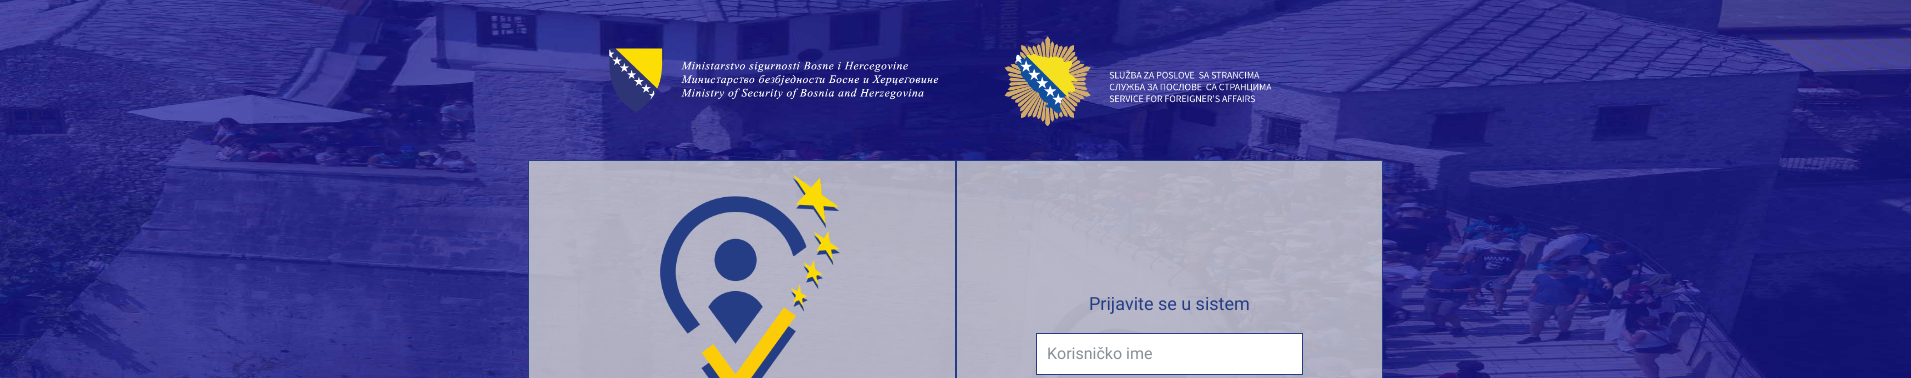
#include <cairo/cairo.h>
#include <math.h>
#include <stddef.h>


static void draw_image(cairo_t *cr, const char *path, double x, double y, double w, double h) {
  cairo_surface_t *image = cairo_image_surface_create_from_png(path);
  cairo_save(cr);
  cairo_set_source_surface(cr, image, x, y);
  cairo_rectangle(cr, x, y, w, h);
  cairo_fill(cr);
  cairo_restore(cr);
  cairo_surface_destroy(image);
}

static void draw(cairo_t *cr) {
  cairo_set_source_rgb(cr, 1, 1, 1);
  cairo_paint(cr);
  draw_image(cr, "images/1.png", 0, 0, 1911, 378);
  draw_image(cr, "images/2.png", 609, 48, 330, 64);
  draw_image(cr, "images/3.png", 1004, 36, 267, 90);
  cairo_set_source_rgba(cr, 210 / 255.0, 210 / 255.0, 210 / 255.0, 0.8);
  cairo_rectangle(cr, 528.5, 160.5, 427, 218);
  cairo_fill_preserve(cr);
  cairo_set_source_rgb(cr, 36 / 255.0, 61 / 255.0, 132 / 255.0);
  cairo_set_line_width(cr, 1);
  cairo_stroke(cr);
  draw_image(cr, "images/4.png", 660, 174, 180, 204);
  cairo_set_source_rgba(cr, 210 / 255.0, 210 / 255.0, 210 / 255.0, 0.8);
  cairo_rectangle(cr, 956.5, 160.5, 426, 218);
  cairo_fill_preserve(cr);
  cairo_set_source_rgb(cr, 36 / 255.0, 61 / 255.0, 132 / 255.0);
  cairo_stroke(cr);
  cairo_set_source_rgb(cr, 1, 1, 1);
  cairo_rectangle(cr, 1036.5, 333.5, 266, 41);
  cairo_fill_preserve(cr);
  cairo_set_source_rgb(cr, 36 / 255.0, 61 / 255.0, 132 / 255.0);
  cairo_stroke(cr);
  cairo_select_font_face(cr, "Roboto", CAIRO_FONT_SLANT_NORMAL, CAIRO_FONT_WEIGHT_NORMAL);
  cairo_set_font_size(cr, 18);
  cairo_move_to(cr, 1089, 310);
  cairo_show_text(cr, "Prijavite se u sistem");
  cairo_set_font_size(cr, 16);
  cairo_set_source_rgb(cr, 134 / 255.0, 142 / 255.0, 150 / 255.0);
  cairo_move_to(cr, 1047, 359);
  cairo_show_text(cr, "Korisničko ime");
}

int main(void) {
  cairo_surface_t *surface = cairo_image_surface_create(CAIRO_FORMAT_RGB24, 1911, 378);
  cairo_t *cr = cairo_create(surface);
  cairo_font_options_t *options = cairo_font_options_create();
  cairo_font_options_set_hint_metrics(options, CAIRO_HINT_METRICS_OFF);
  cairo_font_options_set_hint_style(options, CAIRO_HINT_STYLE_NONE);
  cairo_set_font_options(cr, options);
  cairo_set_miter_limit(cr, 4);
  draw(cr);
  cairo_surface_write_to_png(surface, "out.png");
  cairo_font_options_destroy(options);
  cairo_destroy(cr);
  cairo_surface_destroy(surface);
  return 0;
}
